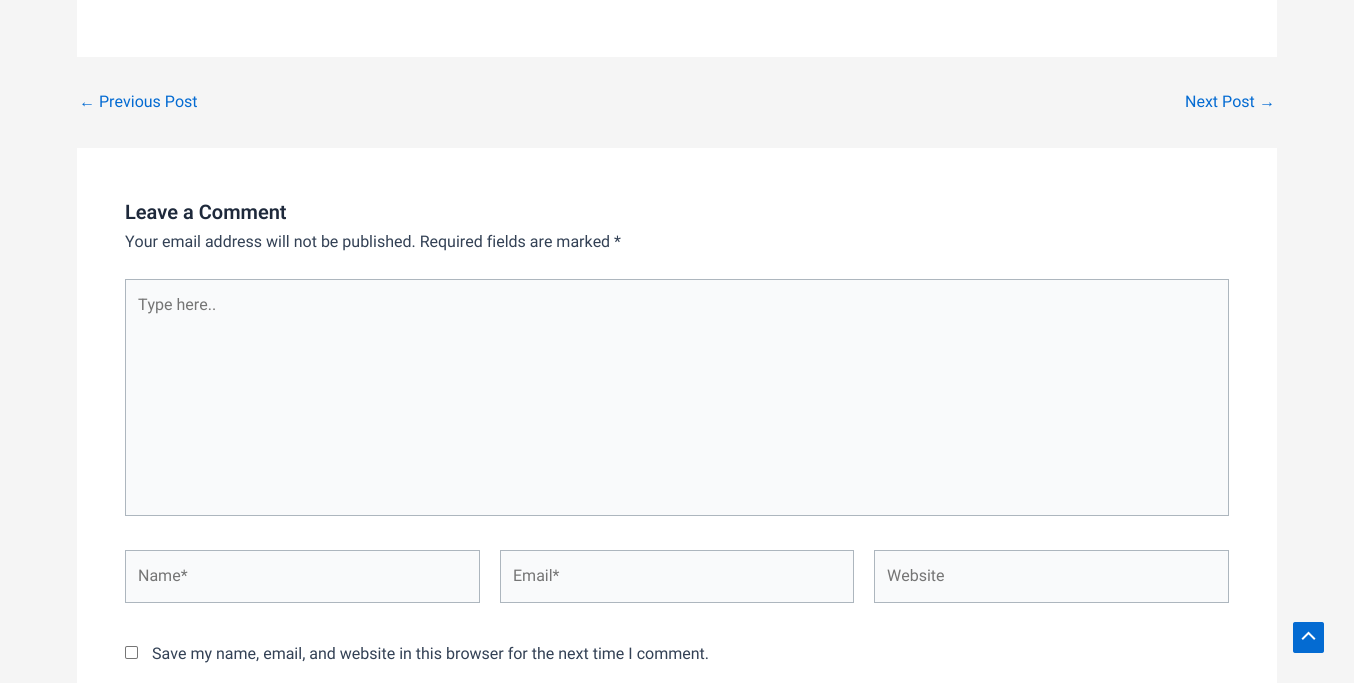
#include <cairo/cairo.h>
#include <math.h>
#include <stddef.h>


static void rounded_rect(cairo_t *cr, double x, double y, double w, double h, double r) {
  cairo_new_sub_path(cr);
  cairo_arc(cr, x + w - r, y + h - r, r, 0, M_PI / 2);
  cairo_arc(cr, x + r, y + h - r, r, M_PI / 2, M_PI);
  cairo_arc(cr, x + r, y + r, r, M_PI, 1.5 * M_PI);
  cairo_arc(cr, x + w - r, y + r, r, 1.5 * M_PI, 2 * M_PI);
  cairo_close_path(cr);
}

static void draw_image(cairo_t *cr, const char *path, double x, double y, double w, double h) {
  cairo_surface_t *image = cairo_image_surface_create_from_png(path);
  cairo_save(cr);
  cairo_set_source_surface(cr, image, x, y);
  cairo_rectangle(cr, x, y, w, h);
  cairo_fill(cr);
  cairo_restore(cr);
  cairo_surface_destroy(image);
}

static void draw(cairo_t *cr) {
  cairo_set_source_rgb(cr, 245 / 255.0, 245 / 255.0, 245 / 255.0);
  cairo_paint(cr);
  cairo_set_source_rgb(cr, 1, 1, 1);
  cairo_rectangle(cr, 77, 0, 1200, 57);
  cairo_fill(cr);
  cairo_rectangle(cr, 77, 148, 1200, 535);
  cairo_fill(cr);
  cairo_set_source_rgb(cr, 249 / 255.0, 250 / 255.0, 251 / 255.0);
  cairo_rectangle(cr, 125.5, 279.5, 1103, 236);
  cairo_fill_preserve(cr);
  cairo_set_source_rgb(cr, 173 / 255.0, 182 / 255.0, 190 / 255.0);
  cairo_set_line_width(cr, 1);
  cairo_stroke(cr);
  cairo_set_source_rgb(cr, 249 / 255.0, 250 / 255.0, 251 / 255.0);
  cairo_rectangle(cr, 125.5, 550.5, 354, 52);
  cairo_fill_preserve(cr);
  cairo_set_source_rgb(cr, 173 / 255.0, 182 / 255.0, 190 / 255.0);
  cairo_stroke(cr);
  cairo_set_source_rgb(cr, 249 / 255.0, 250 / 255.0, 251 / 255.0);
  cairo_rectangle(cr, 500.5, 550.5, 353, 52);
  cairo_fill_preserve(cr);
  cairo_set_source_rgb(cr, 173 / 255.0, 182 / 255.0, 190 / 255.0);
  cairo_stroke(cr);
  cairo_set_source_rgb(cr, 249 / 255.0, 250 / 255.0, 251 / 255.0);
  cairo_rectangle(cr, 874.5, 550.5, 354, 52);
  cairo_fill_preserve(cr);
  cairo_set_source_rgb(cr, 173 / 255.0, 182 / 255.0, 190 / 255.0);
  cairo_stroke(cr);
  rounded_rect(cr, 125.5, 646.5, 12, 12, 1.5);
  cairo_set_source_rgb(cr, 118 / 255.0, 118 / 255.0, 118 / 255.0);
  cairo_stroke(cr);
  cairo_set_source_rgb(cr, 4 / 255.0, 107 / 255.0, 210 / 255.0);
  rounded_rect(cr, 1293, 622, 31, 31, 2);
  cairo_fill(cr);
  draw_image(cr, "images/1.png", 1301, 631, 15, 9);
  cairo_select_font_face(cr, "Liberation Sans", CAIRO_FONT_SLANT_NORMAL, CAIRO_FONT_WEIGHT_NORMAL);
  cairo_set_font_size(cr, 16);
  cairo_move_to(cr, 79, 107);
  cairo_show_text(cr, "←");
  cairo_select_font_face(cr, "Roboto", CAIRO_FONT_SLANT_NORMAL, CAIRO_FONT_WEIGHT_NORMAL);
  cairo_move_to(cr, 99, 107);
  cairo_show_text(cr, "Previous Post");
  cairo_move_to(cr, 1185, 107);
  cairo_show_text(cr, "Next Post");
  cairo_select_font_face(cr, "Liberation Sans", CAIRO_FONT_SLANT_NORMAL, CAIRO_FONT_WEIGHT_NORMAL);
  cairo_move_to(cr, 1259, 107);
  cairo_show_text(cr, "→");
  cairo_select_font_face(cr, "Roboto SemiBold", CAIRO_FONT_SLANT_NORMAL, CAIRO_FONT_WEIGHT_NORMAL);
  cairo_set_font_size(cr, 20);
  cairo_set_source_rgb(cr, 30 / 255.0, 41 / 255.0, 59 / 255.0);
  cairo_move_to(cr, 125, 219);
  cairo_show_text(cr, "Leave a Comment");
  cairo_select_font_face(cr, "Roboto", CAIRO_FONT_SLANT_NORMAL, CAIRO_FONT_WEIGHT_NORMAL);
  cairo_set_font_size(cr, 16);
  cairo_set_source_rgb(cr, 51 / 255.0, 65 / 255.0, 85 / 255.0);
  cairo_move_to(cr, 125, 247);
  cairo_show_text(cr, "Your email address will not be published. Required fields are marked *");
  cairo_set_source_rgb(cr, 117 / 255.0, 117 / 255.0, 117 / 255.0);
  cairo_move_to(cr, 138, 310);
  cairo_show_text(cr, "Type here..");
  cairo_move_to(cr, 138, 581);
  cairo_show_text(cr, "Name*");
  cairo_move_to(cr, 513, 581);
  cairo_show_text(cr, "Email*");
  cairo_move_to(cr, 887, 581);
  cairo_show_text(cr, "Website");
  cairo_set_source_rgb(cr, 51 / 255.0, 65 / 255.0, 85 / 255.0);
  cairo_move_to(cr, 152, 659);
  cairo_show_text(cr, "Save my name, email, and website in this browser for the next time I comment.");
}

int main(void) {
  cairo_surface_t *surface = cairo_image_surface_create(CAIRO_FORMAT_RGB24, 1354, 683);
  cairo_t *cr = cairo_create(surface);
  cairo_font_options_t *options = cairo_font_options_create();
  cairo_font_options_set_hint_metrics(options, CAIRO_HINT_METRICS_OFF);
  cairo_font_options_set_hint_style(options, CAIRO_HINT_STYLE_NONE);
  cairo_set_font_options(cr, options);
  cairo_set_miter_limit(cr, 4);
  draw(cr);
  cairo_surface_write_to_png(surface, "out.png");
  cairo_font_options_destroy(options);
  cairo_destroy(cr);
  cairo_surface_destroy(surface);
  return 0;
}
